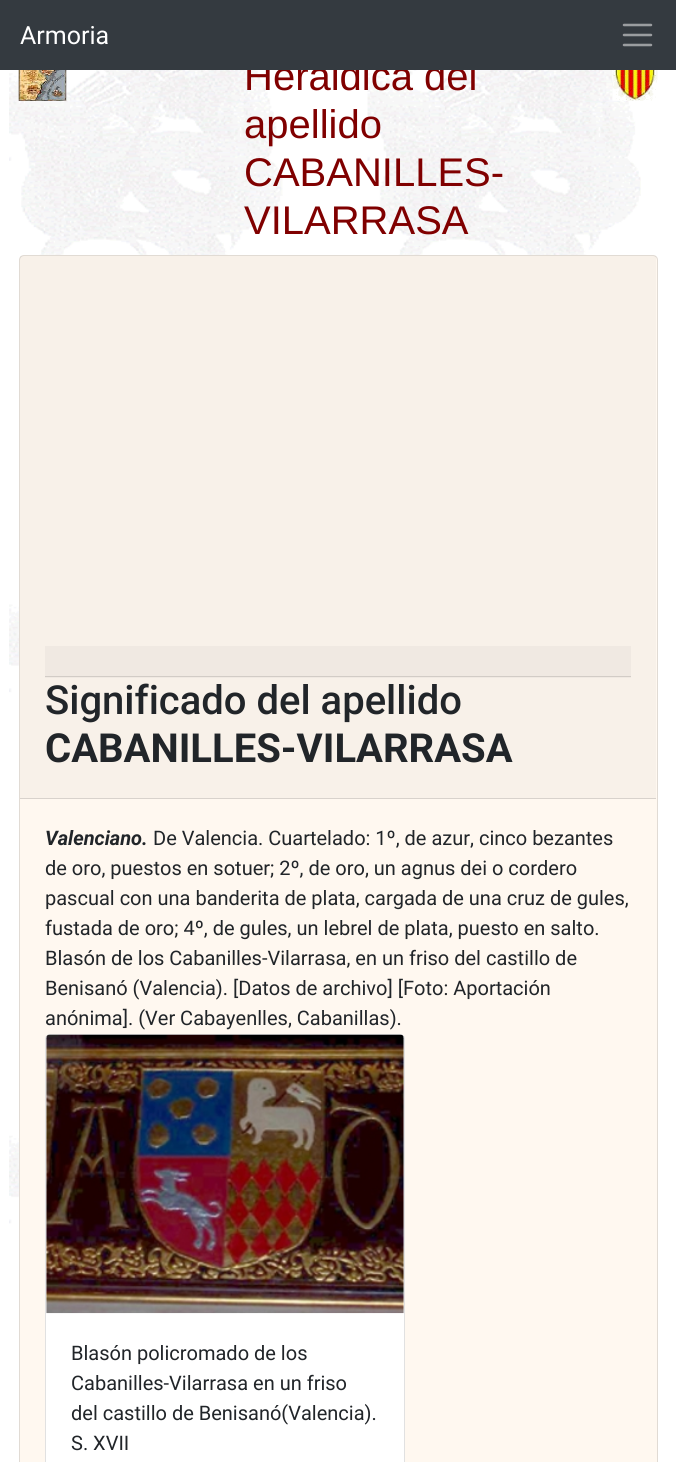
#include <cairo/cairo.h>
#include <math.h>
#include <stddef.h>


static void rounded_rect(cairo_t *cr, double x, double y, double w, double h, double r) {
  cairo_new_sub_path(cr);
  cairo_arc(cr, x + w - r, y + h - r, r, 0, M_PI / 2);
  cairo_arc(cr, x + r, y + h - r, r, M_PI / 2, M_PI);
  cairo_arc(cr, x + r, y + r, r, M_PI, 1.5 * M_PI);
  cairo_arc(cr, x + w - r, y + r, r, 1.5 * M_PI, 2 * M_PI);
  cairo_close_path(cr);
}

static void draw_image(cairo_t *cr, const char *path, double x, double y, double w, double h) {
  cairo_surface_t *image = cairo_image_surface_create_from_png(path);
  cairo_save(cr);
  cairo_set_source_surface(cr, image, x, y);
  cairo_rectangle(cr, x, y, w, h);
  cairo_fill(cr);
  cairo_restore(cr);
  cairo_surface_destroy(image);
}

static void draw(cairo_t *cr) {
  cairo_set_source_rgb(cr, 1, 1, 1);
  cairo_paint(cr);
  draw_image(cr, "images/1.png", 9, 70, 632, 1338);
  draw_image(cr, "images/2.png", 18, 70, 49, 31);
  draw_image(cr, "images/3.png", 612, 70, 46, 31);
  cairo_set_source_rgb(cr, 1, 248 / 255.0, 240 / 255.0);
  rounded_rect(cr, 19, 255, 639, 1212, 5);
  cairo_fill(cr);
  rounded_rect(cr, 19.5, 255.5, 638, 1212, 4.5);
  cairo_set_source_rgba(cr, 0, 0, 0, 0.12);
  cairo_set_line_width(cr, 1);
  cairo_stroke(cr);
  cairo_set_source_rgba(cr, 0, 0, 0, 0.03);
  cairo_rectangle(cr, 20, 256, 636, 542);
  cairo_fill(cr);
  cairo_set_source_rgb(cr, 216 / 255.0, 210 / 255.0, 204 / 255.0);
  cairo_rectangle(cr, 20, 798, 636, 1);
  cairo_fill(cr);
  cairo_set_source_rgb(cr, 240 / 255.0, 233 / 255.0, 226 / 255.0);
  cairo_rectangle(cr, 45, 646, 586, 32);
  cairo_fill(cr);
  cairo_set_source_rgb(cr, 210 / 255.0, 204 / 255.0, 198 / 255.0);
  cairo_rectangle(cr, 45, 676, 586, 1);
  cairo_fill(cr);
  cairo_set_source_rgb(cr, 1, 1, 1);
  rounded_rect(cr, 45, 1034, 360, 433, 5);
  cairo_fill(cr);
  rounded_rect(cr, 45.5, 1034.5, 359, 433, 4.5);
  cairo_set_source_rgba(cr, 0, 0, 0, 0.12);
  cairo_stroke(cr);
  draw_image(cr, "images/4.png", 46, 1034, 358, 280);
  cairo_select_font_face(cr, "Liberation Sans", CAIRO_FONT_SLANT_NORMAL, CAIRO_FONT_WEIGHT_NORMAL);
  cairo_set_font_size(cr, 40);
  cairo_set_source_rgb(cr, 128 / 255.0, 0, 0);
  cairo_move_to(cr, 244, 90);
  cairo_show_text(cr, "Heraldica del");
  cairo_set_source_rgb(cr, 52 / 255.0, 58 / 255.0, 64 / 255.0);
  cairo_rectangle(cr, 0, 0, 676, 70);
  cairo_fill(cr);
  cairo_new_path(cr);
  cairo_move_to(cr, 624, 25);
  cairo_line_to(cr, 651, 25);
  cairo_move_to(cr, 624, 35);
  cairo_line_to(cr, 651, 35);
  cairo_move_to(cr, 624, 45);
  cairo_line_to(cr, 651, 45);
  cairo_set_source_rgb(cr, 154 / 255.0, 157 / 255.0, 160 / 255.0);
  cairo_set_line_width(cr, 2.5);
  cairo_set_line_cap(cr, CAIRO_LINE_CAP_ROUND);
  cairo_stroke(cr);
  cairo_select_font_face(cr, "Roboto", CAIRO_FONT_SLANT_NORMAL, CAIRO_FONT_WEIGHT_NORMAL);
  cairo_set_font_size(cr, 25);
  cairo_set_source_rgb(cr, 1, 1, 1);
  cairo_move_to(cr, 20, 44);
  cairo_show_text(cr, "Armoria");
  cairo_select_font_face(cr, "Liberation Sans", CAIRO_FONT_SLANT_NORMAL, CAIRO_FONT_WEIGHT_NORMAL);
  cairo_set_font_size(cr, 40);
  cairo_set_source_rgb(cr, 128 / 255.0, 0, 0);
  cairo_move_to(cr, 244, 138);
  cairo_show_text(cr, "apellido");
  cairo_move_to(cr, 244, 186);
  cairo_show_text(cr, "CABANILLES-");
  cairo_move_to(cr, 244, 234);
  cairo_show_text(cr, "VILARRASA");
  cairo_select_font_face(cr, "Roboto Medium", CAIRO_FONT_SLANT_NORMAL, CAIRO_FONT_WEIGHT_NORMAL);
  cairo_set_source_rgb(cr, 33 / 255.0, 37 / 255.0, 41 / 255.0);
  cairo_move_to(cr, 45, 714);
  cairo_show_text(cr, "Significado del apellido");
  cairo_select_font_face(cr, "Roboto", CAIRO_FONT_SLANT_NORMAL, CAIRO_FONT_WEIGHT_BOLD);
  cairo_move_to(cr, 45, 762);
  cairo_show_text(cr, "CABANILLES-VILARRASA");
  cairo_select_font_face(cr, "Roboto", CAIRO_FONT_SLANT_ITALIC, CAIRO_FONT_WEIGHT_BOLD);
  cairo_set_font_size(cr, 20);
  cairo_move_to(cr, 45, 845);
  cairo_show_text(cr, "Valenciano.");
  cairo_select_font_face(cr, "Roboto", CAIRO_FONT_SLANT_NORMAL, CAIRO_FONT_WEIGHT_NORMAL);
  cairo_move_to(cr, 153, 845);
  cairo_show_text(cr, "De Valencia. Cuartelado: 1º, de azur, cinco bezantes");
  cairo_move_to(cr, 45, 875);
  cairo_show_text(cr, "de oro, puestos en sotuer; 2º, de oro, un agnus dei o cordero");
  cairo_move_to(cr, 45, 905);
  cairo_show_text(cr, "pascual con una banderita de plata, cargada de una cruz de gules,");
  cairo_move_to(cr, 45, 935);
  cairo_show_text(cr, "fustada de oro; 4º, de gules, un lebrel de plata, puesto en salto.");
  cairo_move_to(cr, 45, 965);
  cairo_show_text(cr, "Blasón de los Cabanilles-Vilarrasa, en un friso del castillo de");
  cairo_move_to(cr, 45, 995);
  cairo_show_text(cr, "Benisanó (Valencia). [Datos de archivo] [Foto: Aportación");
  cairo_move_to(cr, 45, 1025);
  cairo_show_text(cr, "anónima]. (Ver Cabayenlles, Cabanillas).");
  cairo_move_to(cr, 71, 1360);
  cairo_show_text(cr, "Blasón policromado de los");
  cairo_move_to(cr, 71, 1390);
  cairo_show_text(cr, "Cabanilles-Vilarrasa en un friso");
  cairo_move_to(cr, 71, 1420);
  cairo_show_text(cr, "del castillo de Benisanó(Valencia).");
  cairo_move_to(cr, 71, 1450);
  cairo_show_text(cr, "S. XVII");
}

int main(void) {
  cairo_surface_t *surface = cairo_image_surface_create(CAIRO_FORMAT_RGB24, 676, 1462);
  cairo_t *cr = cairo_create(surface);
  cairo_font_options_t *options = cairo_font_options_create();
  cairo_font_options_set_hint_metrics(options, CAIRO_HINT_METRICS_OFF);
  cairo_font_options_set_hint_style(options, CAIRO_HINT_STYLE_NONE);
  cairo_set_font_options(cr, options);
  cairo_set_miter_limit(cr, 4);
  draw(cr);
  cairo_surface_write_to_png(surface, "out.png");
  cairo_font_options_destroy(options);
  cairo_destroy(cr);
  cairo_surface_destroy(surface);
  return 0;
}
